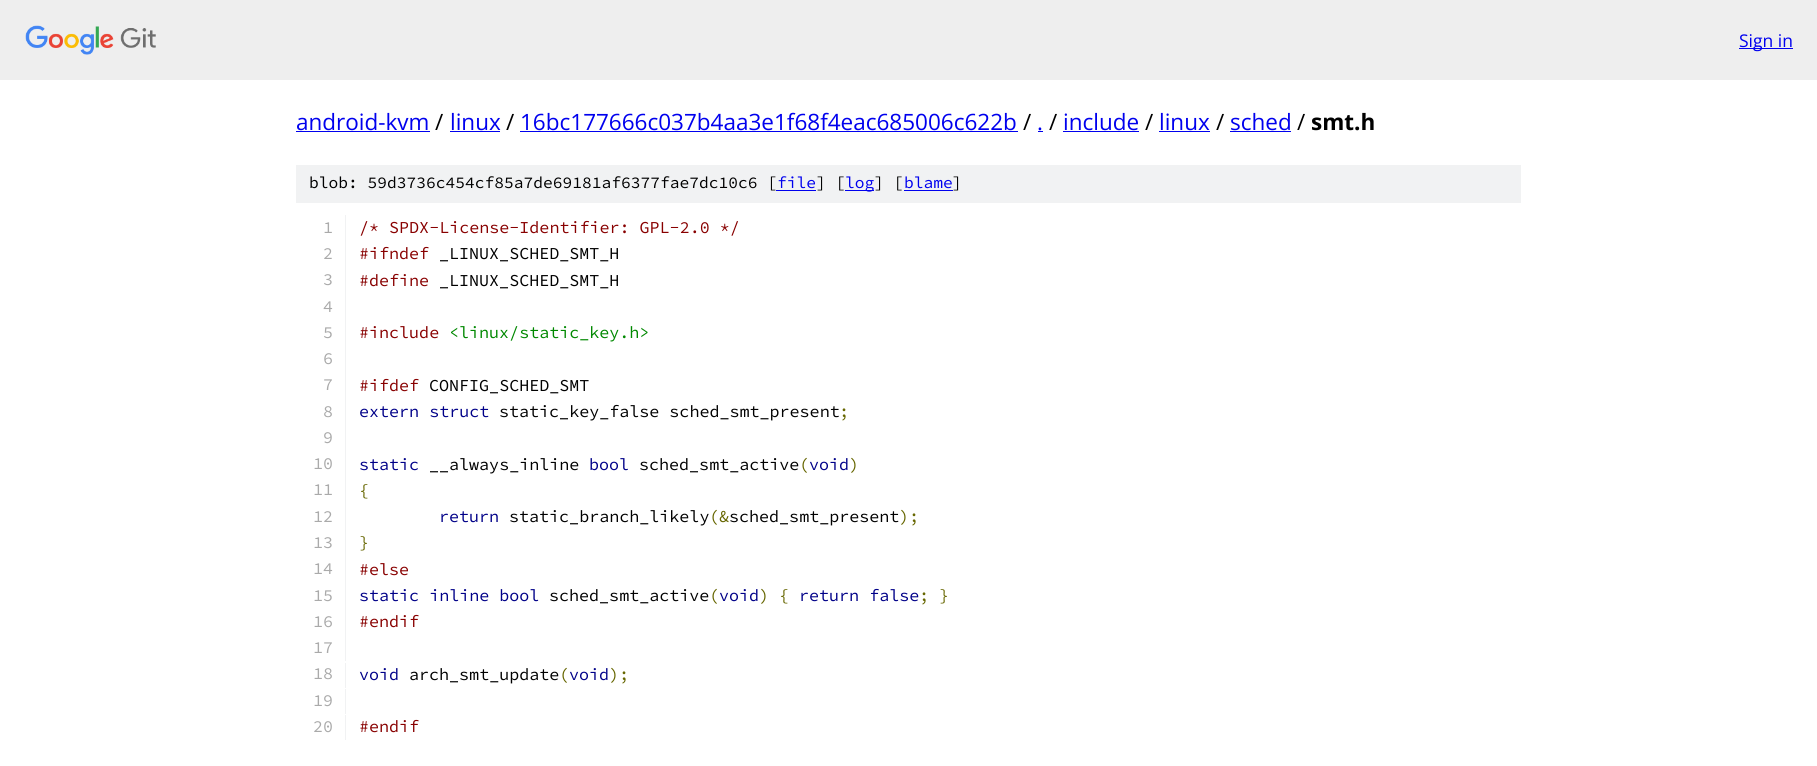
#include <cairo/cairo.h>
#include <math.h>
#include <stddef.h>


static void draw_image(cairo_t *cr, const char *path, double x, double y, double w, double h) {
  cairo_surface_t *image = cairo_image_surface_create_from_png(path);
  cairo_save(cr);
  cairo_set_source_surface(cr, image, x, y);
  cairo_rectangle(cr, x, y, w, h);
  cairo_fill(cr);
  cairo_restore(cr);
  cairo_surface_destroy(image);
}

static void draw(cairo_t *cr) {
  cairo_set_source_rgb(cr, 1, 1, 1);
  cairo_paint(cr);
  cairo_set_source_rgb(cr, 238 / 255.0, 238 / 255.0, 238 / 255.0);
  cairo_rectangle(cr, 0, 0, 1817, 80);
  cairo_fill(cr);
  draw_image(cr, "images/1.png", 25, 25, 131, 30);
  cairo_set_source_rgb(cr, 0, 0, 238 / 255.0);
  cairo_rectangle(cr, 1739, 48, 54, 1);
  cairo_fill(cr);
  cairo_rectangle(cr, 296, 131, 134, 1);
  cairo_fill(cr);
  cairo_rectangle(cr, 450, 131, 50, 1);
  cairo_fill(cr);
  cairo_rectangle(cr, 520, 131, 498, 1);
  cairo_fill(cr);
  cairo_rectangle(cr, 1038, 131, 5, 1);
  cairo_fill(cr);
  cairo_rectangle(cr, 1063, 131, 76, 1);
  cairo_fill(cr);
  cairo_rectangle(cr, 1159, 131, 51, 1);
  cairo_fill(cr);
  cairo_rectangle(cr, 1230, 131, 61, 1);
  cairo_fill(cr);
  cairo_set_source_rgb(cr, 241 / 255.0, 242 / 255.0, 243 / 255.0);
  cairo_rectangle(cr, 296, 165, 1225, 38);
  cairo_fill(cr);
  cairo_set_source_rgb(cr, 0, 0, 238 / 255.0);
  cairo_rectangle(cr, 776, 190, 40, 1);
  cairo_fill(cr);
  cairo_rectangle(cr, 845, 190, 29, 1);
  cairo_fill(cr);
  cairo_rectangle(cr, 904, 190, 49, 1);
  cairo_fill(cr);
  cairo_set_source_rgb(cr, 241 / 255.0, 242 / 255.0, 243 / 255.0);
  cairo_rectangle(cr, 345, 215, 1, 446);
  cairo_fill(cr);
  cairo_rectangle(cr, 345, 663, 1, 25);
  cairo_fill(cr);
  cairo_rectangle(cr, 345, 689, 1, 25);
  cairo_fill(cr);
  cairo_rectangle(cr, 345, 715, 1, 25);
  cairo_fill(cr);
  cairo_select_font_face(cr, "Open Sans", CAIRO_FONT_SLANT_NORMAL, CAIRO_FONT_WEIGHT_NORMAL);
  cairo_set_font_size(cr, 17.5);
  cairo_set_source_rgb(cr, 0, 0, 238 / 255.0);
  cairo_move_to(cr, 1739, 47);
  cairo_show_text(cr, "Sign in");
  cairo_set_font_size(cr, 22.5);
  cairo_move_to(cr, 296, 130);
  cairo_show_text(cr, "android-kvm");
  cairo_set_source_rgb(cr, 0, 0, 0);
  cairo_move_to(cr, 435, 130);
  cairo_show_text(cr, "/");
  cairo_set_source_rgb(cr, 0, 0, 238 / 255.0);
  cairo_move_to(cr, 450, 130);
  cairo_show_text(cr, "linux");
  cairo_set_source_rgb(cr, 0, 0, 0);
  cairo_move_to(cr, 506, 130);
  cairo_show_text(cr, "/");
  cairo_set_source_rgb(cr, 0, 0, 238 / 255.0);
  cairo_move_to(cr, 520, 130);
  cairo_show_text(cr, "16bc177666c037b4aa3e1f68f4eac685006c622b");
  cairo_set_source_rgb(cr, 0, 0, 0);
  cairo_move_to(cr, 1023, 130);
  cairo_show_text(cr, "/");
  cairo_set_source_rgb(cr, 0, 0, 238 / 255.0);
  cairo_move_to(cr, 1037, 130);
  cairo_show_text(cr, ".");
  cairo_set_source_rgb(cr, 0, 0, 0);
  cairo_move_to(cr, 1049, 130);
  cairo_show_text(cr, "/");
  cairo_set_source_rgb(cr, 0, 0, 238 / 255.0);
  cairo_move_to(cr, 1063, 130);
  cairo_show_text(cr, "include");
  cairo_set_source_rgb(cr, 0, 0, 0);
  cairo_move_to(cr, 1145, 130);
  cairo_show_text(cr, "/");
  cairo_set_source_rgb(cr, 0, 0, 238 / 255.0);
  cairo_move_to(cr, 1159, 130);
  cairo_show_text(cr, "linux");
  cairo_set_source_rgb(cr, 0, 0, 0);
  cairo_move_to(cr, 1216, 130);
  cairo_show_text(cr, "/");
  cairo_set_source_rgb(cr, 0, 0, 238 / 255.0);
  cairo_move_to(cr, 1230, 130);
  cairo_show_text(cr, "sched");
  cairo_set_source_rgb(cr, 0, 0, 0);
  cairo_move_to(cr, 1297, 130);
  cairo_show_text(cr, "/");
  cairo_select_font_face(cr, "Open Sans", CAIRO_FONT_SLANT_NORMAL, CAIRO_FONT_WEIGHT_BOLD);
  cairo_move_to(cr, 1311, 130);
  cairo_show_text(cr, "smt.h");
  cairo_select_font_face(cr, "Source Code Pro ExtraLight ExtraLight", CAIRO_FONT_SLANT_NORMAL, CAIRO_FONT_WEIGHT_NORMAL);
  cairo_set_font_size(cr, 16.25);
  cairo_move_to(cr, 309, 188);
  cairo_show_text(cr, "blob: 59d3736c454cf85a7de69181af6377fae7dc10c6 [");
  cairo_set_source_rgb(cr, 0, 0, 238 / 255.0);
  cairo_move_to(cr, 777, 188);
  cairo_show_text(cr, "file");
  cairo_set_source_rgb(cr, 0, 0, 0);
  cairo_move_to(cr, 816, 188);
  cairo_show_text(cr, "] [");
  cairo_set_source_rgb(cr, 0, 0, 238 / 255.0);
  cairo_move_to(cr, 845, 188);
  cairo_show_text(cr, "log");
  cairo_set_source_rgb(cr, 0, 0, 0);
  cairo_move_to(cr, 874, 188);
  cairo_show_text(cr, "] [");
  cairo_set_source_rgb(cr, 0, 0, 238 / 255.0);
  cairo_move_to(cr, 904, 188);
  cairo_show_text(cr, "blame");
  cairo_set_source_rgb(cr, 0, 0, 0);
  cairo_move_to(cr, 952, 188);
  cairo_show_text(cr, "]");
  cairo_set_font_size(cr, 16.7);
  cairo_set_source_rgb(cr, 170 / 255.0, 170 / 255.0, 170 / 255.0);
  cairo_move_to(cr, 323, 233);
  cairo_show_text(cr, "1");
  cairo_set_source_rgb(cr, 136 / 255.0, 0, 0);
  cairo_move_to(cr, 359, 233);
  cairo_show_text(cr, "/* SPDX-License-Identifier: GPL-2.0 */");
  cairo_set_source_rgb(cr, 170 / 255.0, 170 / 255.0, 170 / 255.0);
  cairo_move_to(cr, 323, 259);
  cairo_show_text(cr, "2");
  cairo_set_source_rgb(cr, 136 / 255.0, 0, 0);
  cairo_move_to(cr, 359, 259);
  cairo_show_text(cr, "#ifndef");
  cairo_set_source_rgb(cr, 0, 0, 0);
  cairo_move_to(cr, 439, 259);
  cairo_show_text(cr, "_LINUX_SCHED_SMT_H");
  cairo_set_source_rgb(cr, 170 / 255.0, 170 / 255.0, 170 / 255.0);
  cairo_move_to(cr, 323, 285);
  cairo_show_text(cr, "3");
  cairo_set_source_rgb(cr, 136 / 255.0, 0, 0);
  cairo_move_to(cr, 359, 286);
  cairo_show_text(cr, "#define");
  cairo_set_source_rgb(cr, 0, 0, 0);
  cairo_move_to(cr, 439, 286);
  cairo_show_text(cr, "_LINUX_SCHED_SMT_H");
  cairo_set_source_rgb(cr, 170 / 255.0, 170 / 255.0, 170 / 255.0);
  cairo_move_to(cr, 323, 312);
  cairo_show_text(cr, "4");
  cairo_move_to(cr, 323, 338);
  cairo_show_text(cr, "5");
  cairo_set_source_rgb(cr, 136 / 255.0, 0, 0);
  cairo_move_to(cr, 359, 338);
  cairo_show_text(cr, "#include");
  cairo_set_source_rgb(cr, 0, 136 / 255.0, 0);
  cairo_move_to(cr, 449, 338);
  cairo_show_text(cr, "<linux/static_key.h>");
  cairo_set_source_rgb(cr, 170 / 255.0, 170 / 255.0, 170 / 255.0);
  cairo_move_to(cr, 323, 364);
  cairo_show_text(cr, "6");
  cairo_move_to(cr, 323, 390);
  cairo_show_text(cr, "7");
  cairo_set_source_rgb(cr, 136 / 255.0, 0, 0);
  cairo_move_to(cr, 359, 391);
  cairo_show_text(cr, "#ifdef");
  cairo_set_source_rgb(cr, 0, 0, 0);
  cairo_move_to(cr, 429, 391);
  cairo_show_text(cr, "CONFIG_SCHED_SMT");
  cairo_set_source_rgb(cr, 170 / 255.0, 170 / 255.0, 170 / 255.0);
  cairo_move_to(cr, 323, 417);
  cairo_show_text(cr, "8");
  cairo_set_source_rgb(cr, 0, 0, 136 / 255.0);
  cairo_move_to(cr, 359, 417);
  cairo_show_text(cr, "extern struct");
  cairo_set_source_rgb(cr, 0, 0, 0);
  cairo_move_to(cr, 499, 417);
  cairo_show_text(cr, "static_key_false sched_smt_present");
  cairo_set_source_rgb(cr, 102 / 255.0, 102 / 255.0, 0);
  cairo_move_to(cr, 839, 417);
  cairo_show_text(cr, ";");
  cairo_set_source_rgb(cr, 170 / 255.0, 170 / 255.0, 170 / 255.0);
  cairo_move_to(cr, 323, 443);
  cairo_show_text(cr, "9");
  cairo_move_to(cr, 313, 469);
  cairo_show_text(cr, "10");
  cairo_set_source_rgb(cr, 0, 0, 136 / 255.0);
  cairo_move_to(cr, 359, 470);
  cairo_show_text(cr, "static");
  cairo_set_source_rgb(cr, 0, 0, 0);
  cairo_move_to(cr, 429, 470);
  cairo_show_text(cr, "__always_inline");
  cairo_set_source_rgb(cr, 0, 0, 136 / 255.0);
  cairo_move_to(cr, 589, 470);
  cairo_show_text(cr, "bool");
  cairo_set_source_rgb(cr, 0, 0, 0);
  cairo_move_to(cr, 639, 470);
  cairo_show_text(cr, "sched_smt_active");
  cairo_set_source_rgb(cr, 102 / 255.0, 102 / 255.0, 0);
  cairo_move_to(cr, 799, 470);
  cairo_show_text(cr, "(");
  cairo_set_source_rgb(cr, 0, 0, 136 / 255.0);
  cairo_move_to(cr, 809, 470);
  cairo_show_text(cr, "void");
  cairo_set_source_rgb(cr, 102 / 255.0, 102 / 255.0, 0);
  cairo_move_to(cr, 849, 470);
  cairo_show_text(cr, ")");
  cairo_set_source_rgb(cr, 170 / 255.0, 170 / 255.0, 170 / 255.0);
  cairo_move_to(cr, 313, 495);
  cairo_show_text(cr, "11");
  cairo_set_source_rgb(cr, 102 / 255.0, 102 / 255.0, 0);
  cairo_move_to(cr, 359, 496);
  cairo_show_text(cr, "{");
  cairo_set_source_rgb(cr, 170 / 255.0, 170 / 255.0, 170 / 255.0);
  cairo_move_to(cr, 313, 522);
  cairo_show_text(cr, "12");
  cairo_set_source_rgb(cr, 0, 0, 136 / 255.0);
  cairo_move_to(cr, 439, 522);
  cairo_show_text(cr, "return");
  cairo_set_source_rgb(cr, 0, 0, 0);
  cairo_move_to(cr, 509, 522);
  cairo_show_text(cr, "static_branch_likely");
  cairo_set_source_rgb(cr, 102 / 255.0, 102 / 255.0, 0);
  cairo_move_to(cr, 709, 522);
  cairo_show_text(cr, "(&");
  cairo_set_source_rgb(cr, 0, 0, 0);
  cairo_move_to(cr, 729, 522);
  cairo_show_text(cr, "sched_smt_present");
  cairo_set_source_rgb(cr, 102 / 255.0, 102 / 255.0, 0);
  cairo_move_to(cr, 899, 522);
  cairo_show_text(cr, ");");
  cairo_set_source_rgb(cr, 170 / 255.0, 170 / 255.0, 170 / 255.0);
  cairo_move_to(cr, 313, 548);
  cairo_show_text(cr, "13");
  cairo_set_source_rgb(cr, 102 / 255.0, 102 / 255.0, 0);
  cairo_move_to(cr, 359, 548);
  cairo_show_text(cr, "}");
  cairo_set_source_rgb(cr, 170 / 255.0, 170 / 255.0, 170 / 255.0);
  cairo_move_to(cr, 313, 574);
  cairo_show_text(cr, "14");
  cairo_set_source_rgb(cr, 136 / 255.0, 0, 0);
  cairo_move_to(cr, 359, 575);
  cairo_show_text(cr, "#else");
  cairo_set_source_rgb(cr, 170 / 255.0, 170 / 255.0, 170 / 255.0);
  cairo_move_to(cr, 313, 601);
  cairo_show_text(cr, "15");
  cairo_set_source_rgb(cr, 0, 0, 136 / 255.0);
  cairo_move_to(cr, 359, 601);
  cairo_show_text(cr, "static inline bool");
  cairo_set_source_rgb(cr, 0, 0, 0);
  cairo_move_to(cr, 549, 601);
  cairo_show_text(cr, "sched_smt_active");
  cairo_set_source_rgb(cr, 102 / 255.0, 102 / 255.0, 0);
  cairo_move_to(cr, 709, 601);
  cairo_show_text(cr, "(");
  cairo_set_source_rgb(cr, 0, 0, 136 / 255.0);
  cairo_move_to(cr, 719, 601);
  cairo_show_text(cr, "void");
  cairo_set_source_rgb(cr, 102 / 255.0, 102 / 255.0, 0);
  cairo_move_to(cr, 759, 601);
  cairo_show_text(cr, ") {");
  cairo_set_source_rgb(cr, 0, 0, 136 / 255.0);
  cairo_move_to(cr, 799, 601);
  cairo_show_text(cr, "return false");
  cairo_set_source_rgb(cr, 102 / 255.0, 102 / 255.0, 0);
  cairo_move_to(cr, 919, 601);
  cairo_show_text(cr, "; }");
  cairo_set_source_rgb(cr, 170 / 255.0, 170 / 255.0, 170 / 255.0);
  cairo_move_to(cr, 313, 627);
  cairo_show_text(cr, "16");
  cairo_set_source_rgb(cr, 136 / 255.0, 0, 0);
  cairo_move_to(cr, 359, 627);
  cairo_show_text(cr, "#endif");
  cairo_set_source_rgb(cr, 170 / 255.0, 170 / 255.0, 170 / 255.0);
  cairo_move_to(cr, 313, 653);
  cairo_show_text(cr, "17");
  cairo_move_to(cr, 313, 679);
  cairo_show_text(cr, "18");
  cairo_set_source_rgb(cr, 0, 0, 136 / 255.0);
  cairo_move_to(cr, 359, 680);
  cairo_show_text(cr, "void");
  cairo_set_source_rgb(cr, 0, 0, 0);
  cairo_move_to(cr, 409, 680);
  cairo_show_text(cr, "arch_smt_update");
  cairo_set_source_rgb(cr, 102 / 255.0, 102 / 255.0, 0);
  cairo_move_to(cr, 559, 680);
  cairo_show_text(cr, "(");
  cairo_set_source_rgb(cr, 0, 0, 136 / 255.0);
  cairo_move_to(cr, 569, 680);
  cairo_show_text(cr, "void");
  cairo_set_source_rgb(cr, 102 / 255.0, 102 / 255.0, 0);
  cairo_move_to(cr, 609, 680);
  cairo_show_text(cr, ");");
  cairo_set_source_rgb(cr, 170 / 255.0, 170 / 255.0, 170 / 255.0);
  cairo_move_to(cr, 313, 706);
  cairo_show_text(cr, "19");
  cairo_move_to(cr, 313, 732);
  cairo_show_text(cr, "20");
  cairo_set_source_rgb(cr, 136 / 255.0, 0, 0);
  cairo_move_to(cr, 359, 732);
  cairo_show_text(cr, "#endif");
}

int main(void) {
  cairo_surface_t *surface = cairo_image_surface_create(CAIRO_FORMAT_RGB24, 1817, 766);
  cairo_t *cr = cairo_create(surface);
  cairo_font_options_t *options = cairo_font_options_create();
  cairo_font_options_set_hint_metrics(options, CAIRO_HINT_METRICS_OFF);
  cairo_font_options_set_hint_style(options, CAIRO_HINT_STYLE_NONE);
  cairo_set_font_options(cr, options);
  cairo_set_miter_limit(cr, 4);
  draw(cr);
  cairo_surface_write_to_png(surface, "out.png");
  cairo_font_options_destroy(options);
  cairo_destroy(cr);
  cairo_surface_destroy(surface);
  return 0;
}
